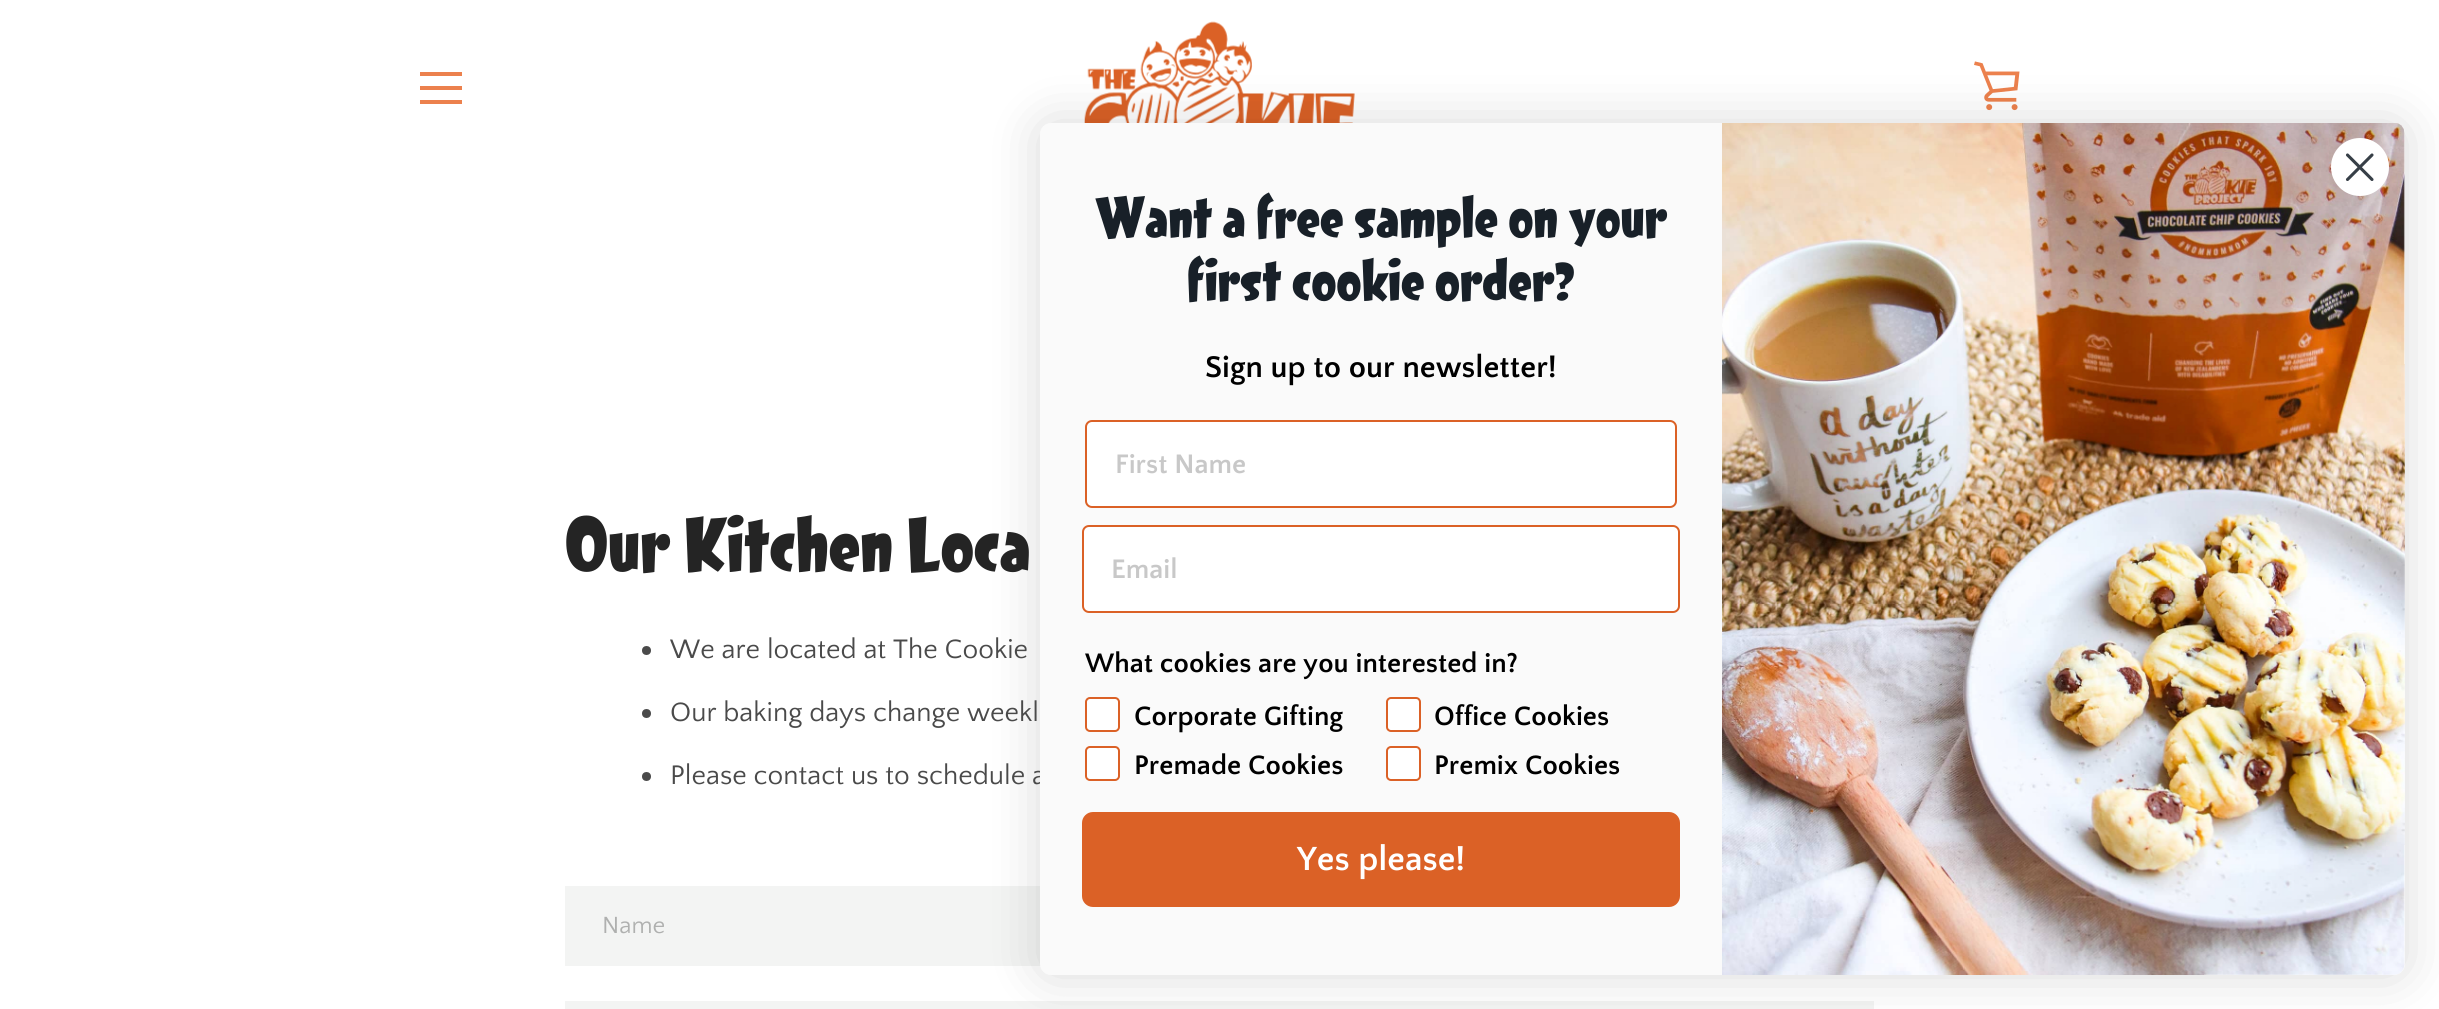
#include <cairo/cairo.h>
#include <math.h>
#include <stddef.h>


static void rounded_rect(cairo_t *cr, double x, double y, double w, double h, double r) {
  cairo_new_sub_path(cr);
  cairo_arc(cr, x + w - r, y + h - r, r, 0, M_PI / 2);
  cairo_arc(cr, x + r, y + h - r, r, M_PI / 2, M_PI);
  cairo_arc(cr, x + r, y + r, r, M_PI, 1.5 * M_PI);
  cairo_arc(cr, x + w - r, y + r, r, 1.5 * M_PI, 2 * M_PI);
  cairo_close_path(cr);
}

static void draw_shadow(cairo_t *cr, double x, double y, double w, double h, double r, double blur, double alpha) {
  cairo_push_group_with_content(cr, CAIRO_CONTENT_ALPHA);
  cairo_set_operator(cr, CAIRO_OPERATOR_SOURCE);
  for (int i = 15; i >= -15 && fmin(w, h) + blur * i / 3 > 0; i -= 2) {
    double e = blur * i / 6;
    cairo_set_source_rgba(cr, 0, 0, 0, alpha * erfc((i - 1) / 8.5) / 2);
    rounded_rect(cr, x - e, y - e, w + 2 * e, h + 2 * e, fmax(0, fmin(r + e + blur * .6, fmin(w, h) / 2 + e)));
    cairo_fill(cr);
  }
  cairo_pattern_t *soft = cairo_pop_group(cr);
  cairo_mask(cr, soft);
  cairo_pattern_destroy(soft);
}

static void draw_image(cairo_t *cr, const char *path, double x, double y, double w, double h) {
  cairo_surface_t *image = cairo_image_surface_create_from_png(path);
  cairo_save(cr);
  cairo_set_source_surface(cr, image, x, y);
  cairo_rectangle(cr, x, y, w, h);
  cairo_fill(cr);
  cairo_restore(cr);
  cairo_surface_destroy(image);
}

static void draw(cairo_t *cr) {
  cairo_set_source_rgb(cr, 1, 1, 1);
  cairo_paint(cr);
  cairo_set_source_rgb(cr, 236 / 255.0, 129 / 255.0, 77 / 255.0);
  cairo_rectangle(cr, 420, 72, 42, 4);
  cairo_fill(cr);
  cairo_rectangle(cr, 420, 86, 42, 4);
  cairo_fill(cr);
  cairo_rectangle(cr, 420, 100, 42, 4);
  cairo_fill(cr);
  draw_image(cr, "images/1.png", 1084, 21, 271, 102);
  draw_image(cr, "images/2.png", 1974, 61, 46, 50);
  cairo_set_source_rgb(cr, 74 / 255.0, 74 / 255.0, 74 / 255.0);
  cairo_arc(cr, 646.5, 650.5, 4.5, 0, 2 * M_PI);
  cairo_fill(cr);
  cairo_arc(cr, 646.5, 713.5, 4.5, 0, 2 * M_PI);
  cairo_fill(cr);
  cairo_arc(cr, 646.5, 776.5, 4.5, 0, 2 * M_PI);
  cairo_fill(cr);
  cairo_set_source_rgb(cr, 243 / 255.0, 244 / 255.0, 243 / 255.0);
  cairo_rectangle(cr, 565, 886, 476, 80);
  cairo_fill(cr);
  cairo_rectangle(cr, 565, 1001, 1309, 8);
  cairo_fill(cr);
  cairo_set_source_rgb(cr, 0, 0, 0);
  draw_shadow(cr, 1040, 123, 1365, 852, 11, 26, 0.15);
  cairo_select_font_face(cr, "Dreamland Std", CAIRO_FONT_SLANT_NORMAL, CAIRO_FONT_WEIGHT_BOLD);
  cairo_set_font_size(cr, 70);
  cairo_set_source_rgb(cr, 36 / 255.0, 36 / 255.0, 36 / 255.0);
  cairo_move_to(cr, 565, 571);
  cairo_show_text(cr, "Our Kitchen Loca");
  cairo_select_font_face(cr, "Quattrocento Sans", CAIRO_FONT_SLANT_NORMAL, CAIRO_FONT_WEIGHT_NORMAL);
  cairo_set_font_size(cr, 28);
  cairo_set_source_rgb(cr, 74 / 255.0, 74 / 255.0, 74 / 255.0);
  cairo_move_to(cr, 670, 658);
  cairo_show_text(cr, "We are located at The Cookie");
  cairo_move_to(cr, 670, 721);
  cairo_show_text(cr, "Our baking days change weekl");
  cairo_move_to(cr, 670, 784);
  cairo_show_text(cr, "Please contact us to schedule a");
  cairo_set_font_size(cr, 24.5);
  cairo_set_source_rgb(cr, 175 / 255.0, 176 / 255.0, 175 / 255.0);
  cairo_move_to(cr, 602, 933);
  cairo_show_text(cr, "Name");
  cairo_set_source_rgb(cr, 250 / 255.0, 250 / 255.0, 250 / 255.0);
  rounded_rect(cr, 1040, 123, 1365, 852, 11);
  cairo_fill(cr);
  cairo_select_font_face(cr, "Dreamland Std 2", CAIRO_FONT_SLANT_NORMAL, CAIRO_FONT_WEIGHT_BOLD);
  cairo_set_font_size(cr, 52.5);
  cairo_set_source_rgb(cr, 24 / 255.0, 32 / 255.0, 40 / 255.0);
  cairo_move_to(cr, 1095, 237);
  cairo_show_text(cr, "Want a free sample on your");
  cairo_move_to(cr, 1187, 300);
  cairo_show_text(cr, "first cookie order?");
  cairo_select_font_face(cr, "Quattrocento Sans", CAIRO_FONT_SLANT_NORMAL, CAIRO_FONT_WEIGHT_BOLD);
  cairo_set_font_size(cr, 31.5);
  cairo_set_source_rgb(cr, 0, 0, 0);
  cairo_move_to(cr, 1205, 377);
  cairo_show_text(cr, "Sign up to our newsletter!");
  cairo_set_source_rgb(cr, 1, 1, 1);
  rounded_rect(cr, 1086, 421, 590, 86, 6);
  cairo_fill_preserve(cr);
  cairo_set_source_rgb(cr, 219 / 255.0, 97 / 255.0, 38 / 255.0);
  cairo_stroke(cr);
  cairo_set_font_size(cr, 28);
  cairo_set_source_rgb(cr, 200 / 255.0, 200 / 255.0, 200 / 255.0);
  cairo_move_to(cr, 1115, 473);
  cairo_show_text(cr, "First Name");
  cairo_set_source_rgb(cr, 1, 1, 1);
  rounded_rect(cr, 1083, 526, 596, 86, 6);
  cairo_fill_preserve(cr);
  cairo_set_source_rgb(cr, 219 / 255.0, 97 / 255.0, 38 / 255.0);
  cairo_stroke(cr);
  cairo_set_source_rgb(cr, 200 / 255.0, 200 / 255.0, 200 / 255.0);
  cairo_move_to(cr, 1111, 578);
  cairo_show_text(cr, "Email");
  cairo_set_source_rgb(cr, 0, 0, 0);
  cairo_move_to(cr, 1085, 672);
  cairo_show_text(cr, "What cookies are you interested in?");
  cairo_set_source_rgb(cr, 1, 1, 1);
  rounded_rect(cr, 1086, 698, 33, 33, 4);
  cairo_fill_preserve(cr);
  cairo_set_source_rgb(cr, 219 / 255.0, 97 / 255.0, 38 / 255.0);
  cairo_stroke(cr);
  cairo_set_source_rgb(cr, 0, 0, 0);
  cairo_move_to(cr, 1134, 725);
  cairo_show_text(cr, "Corporate Gifting");
  cairo_set_source_rgb(cr, 1, 1, 1);
  rounded_rect(cr, 1387, 698, 33, 33, 4);
  cairo_fill_preserve(cr);
  cairo_set_source_rgb(cr, 219 / 255.0, 97 / 255.0, 38 / 255.0);
  cairo_stroke(cr);
  cairo_set_source_rgb(cr, 0, 0, 0);
  cairo_move_to(cr, 1434, 725);
  cairo_show_text(cr, "Office Cookies");
  cairo_set_source_rgb(cr, 1, 1, 1);
  rounded_rect(cr, 1086, 747, 33, 33, 4);
  cairo_fill_preserve(cr);
  cairo_set_source_rgb(cr, 219 / 255.0, 97 / 255.0, 38 / 255.0);
  cairo_stroke(cr);
  cairo_set_source_rgb(cr, 0, 0, 0);
  cairo_move_to(cr, 1134, 774);
  cairo_show_text(cr, "Premade Cookies");
  cairo_set_source_rgb(cr, 1, 1, 1);
  rounded_rect(cr, 1387, 747, 33, 33, 4);
  cairo_fill_preserve(cr);
  cairo_set_source_rgb(cr, 219 / 255.0, 97 / 255.0, 38 / 255.0);
  cairo_stroke(cr);
  cairo_set_source_rgb(cr, 0, 0, 0);
  cairo_move_to(cr, 1434, 774);
  cairo_show_text(cr, "Premix Cookies");
  cairo_set_source_rgb(cr, 219 / 255.0, 97 / 255.0, 38 / 255.0);
  rounded_rect(cr, 1082, 812, 598, 95, 11);
  cairo_fill(cr);
  cairo_set_font_size(cr, 35);
  cairo_set_source_rgb(cr, 1, 1, 1);
  cairo_move_to(cr, 1297, 870);
  cairo_show_text(cr, "Yes please!");
  draw_image(cr, "images/3.png", 1722, 123, 683, 852);
  cairo_arc(cr, 2360, 167, 29, 0, 2 * M_PI);
  cairo_fill(cr);
  cairo_new_path(cr);
  cairo_move_to(cr, 2347.5, 155);
  cairo_line_to(cr, 2372, 179.5);
  cairo_move_to(cr, 2347.5, 179.5);
  cairo_line_to(cr, 2372, 155);
  cairo_close_path(cr);
  cairo_set_source_rgb(cr, 55 / 255.0, 63 / 255.0, 71 / 255.0);
  cairo_set_line_width(cr, 3.1);
  cairo_set_line_cap(cr, CAIRO_LINE_CAP_ROUND);
  cairo_set_line_join(cr, CAIRO_LINE_JOIN_ROUND);
  cairo_stroke(cr);
}

int main(void) {
  cairo_surface_t *surface = cairo_image_surface_create(CAIRO_FORMAT_RGB24, 2439, 1009);
  cairo_t *cr = cairo_create(surface);
  cairo_font_options_t *options = cairo_font_options_create();
  cairo_font_options_set_hint_metrics(options, CAIRO_HINT_METRICS_OFF);
  cairo_font_options_set_hint_style(options, CAIRO_HINT_STYLE_NONE);
  cairo_set_font_options(cr, options);
  cairo_set_miter_limit(cr, 4);
  draw(cr);
  cairo_surface_write_to_png(surface, "out.png");
  cairo_font_options_destroy(options);
  cairo_destroy(cr);
  cairo_surface_destroy(surface);
  return 0;
}
